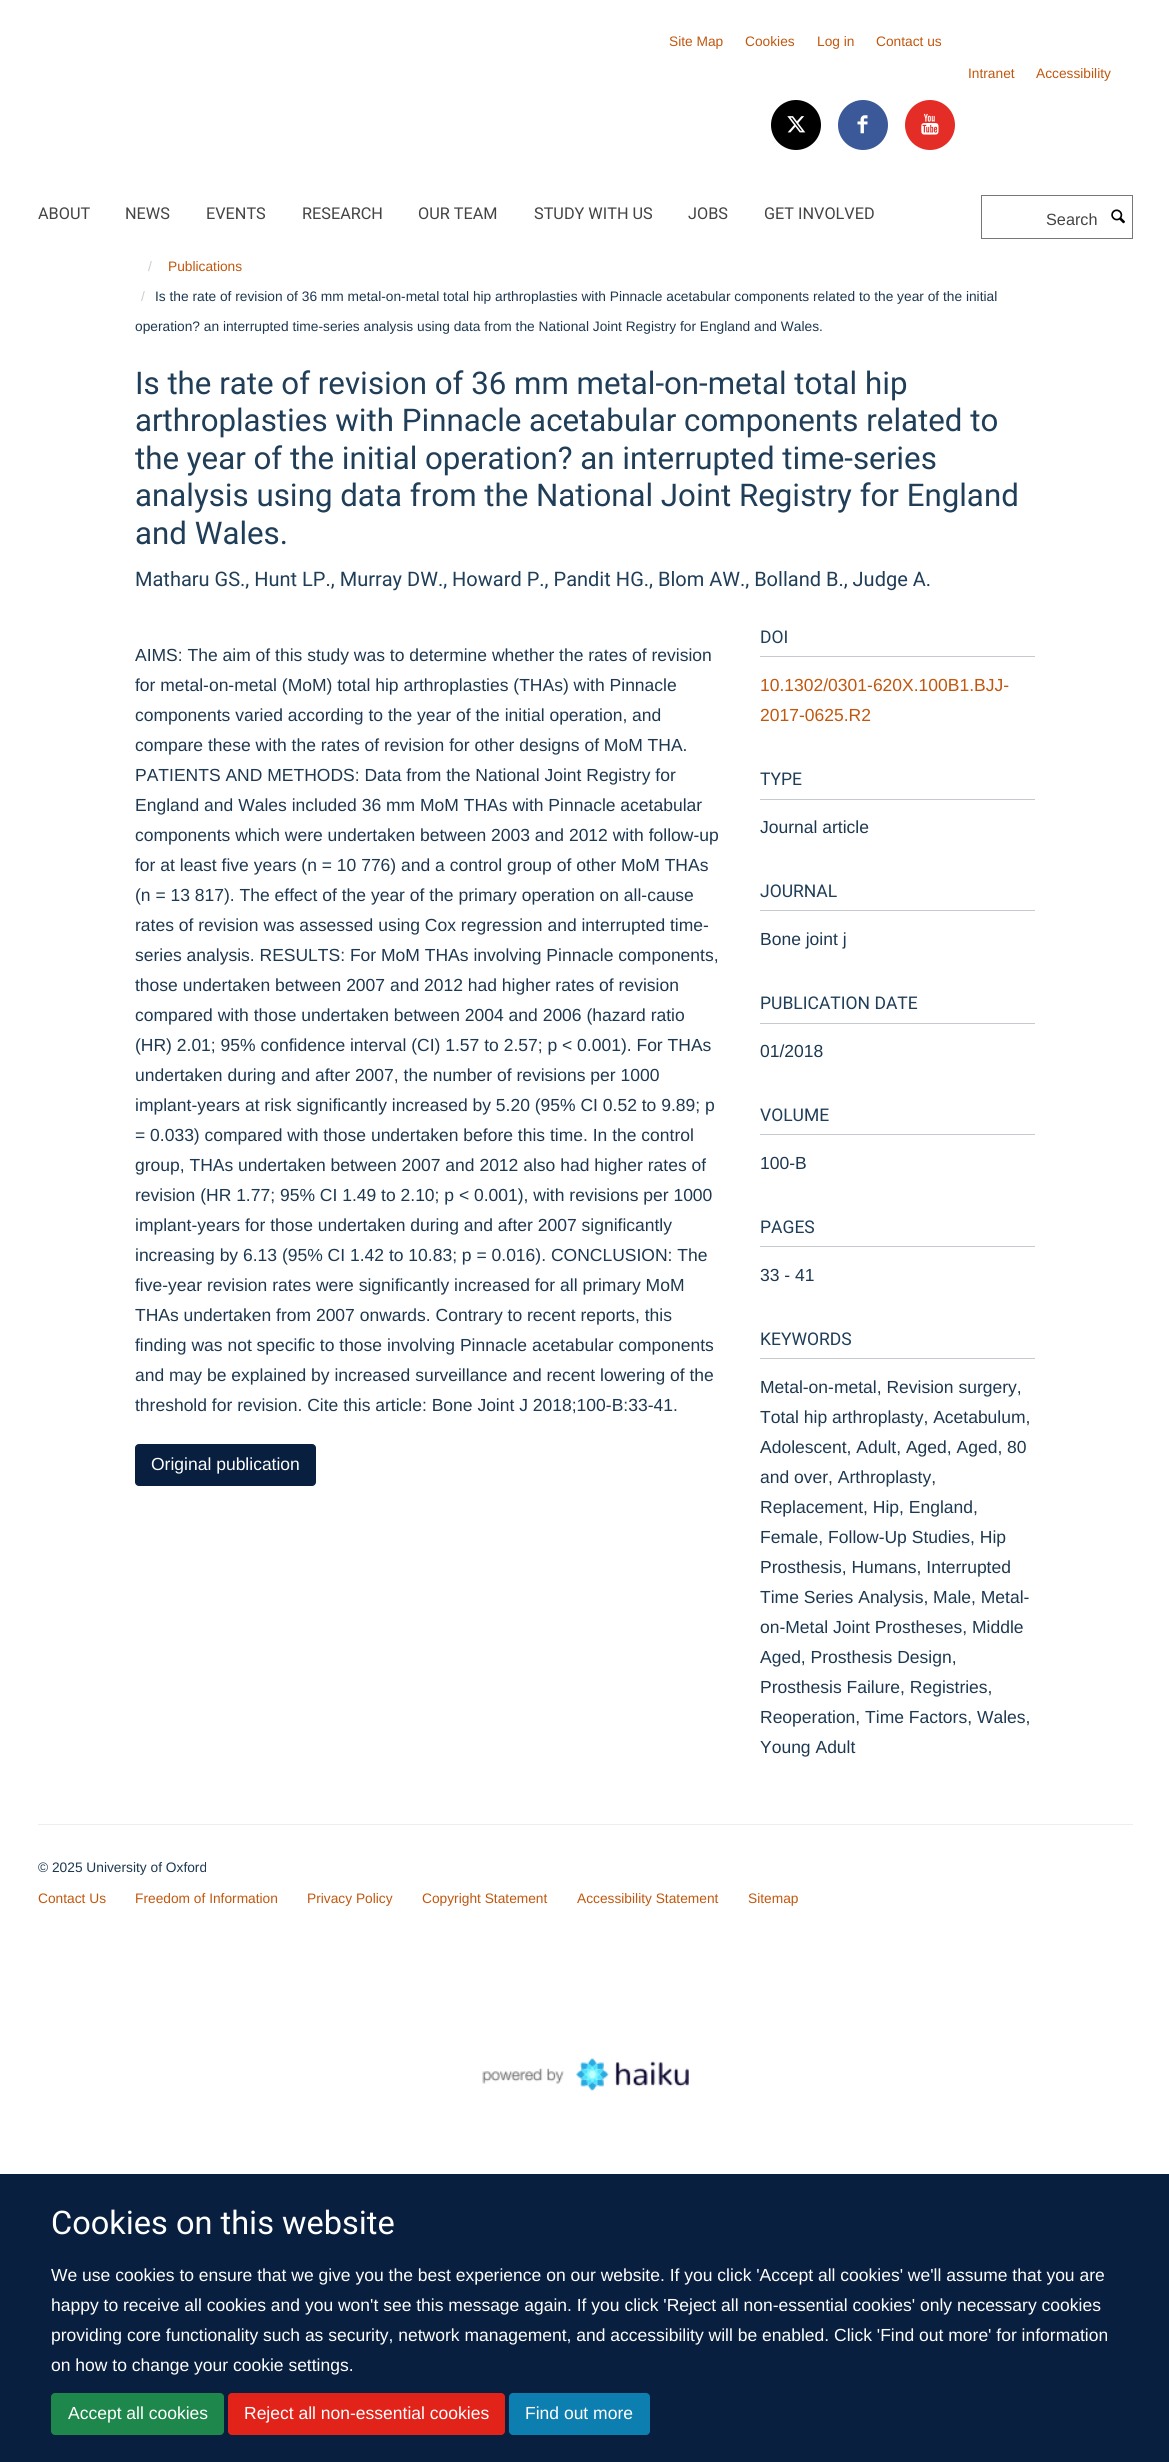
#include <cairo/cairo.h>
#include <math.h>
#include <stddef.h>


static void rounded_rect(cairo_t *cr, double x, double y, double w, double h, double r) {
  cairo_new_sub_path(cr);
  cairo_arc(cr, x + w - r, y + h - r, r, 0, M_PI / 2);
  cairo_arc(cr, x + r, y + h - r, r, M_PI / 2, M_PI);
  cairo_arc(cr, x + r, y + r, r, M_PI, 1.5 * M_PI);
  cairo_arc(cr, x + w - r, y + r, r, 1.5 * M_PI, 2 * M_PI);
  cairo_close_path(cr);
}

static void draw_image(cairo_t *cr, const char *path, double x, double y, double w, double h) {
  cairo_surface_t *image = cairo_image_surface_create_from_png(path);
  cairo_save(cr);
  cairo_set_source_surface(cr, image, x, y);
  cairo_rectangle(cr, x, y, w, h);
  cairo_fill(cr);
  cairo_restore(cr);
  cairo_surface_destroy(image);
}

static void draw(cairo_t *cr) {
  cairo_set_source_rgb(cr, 1, 1, 1);
  cairo_paint(cr);
  cairo_set_source_rgb(cr, 0, 0, 0);
  cairo_arc(cr, 796, 125, 25, 0, 2 * M_PI);
  cairo_fill(cr);
  draw_image(cr, "images/1.png", 787, 116, 19, 17);
  cairo_set_source_rgb(cr, 59 / 255.0, 89 / 255.0, 152 / 255.0);
  cairo_arc(cr, 863, 125, 25, 0, 2 * M_PI);
  cairo_fill(cr);
  draw_image(cr, "images/2.png", 857, 115, 11, 19);
  cairo_set_source_rgb(cr, 229 / 255.0, 45 / 255.0, 39 / 255.0);
  cairo_arc(cr, 930, 125, 25, 0, 2 * M_PI);
  cairo_fill(cr);
  draw_image(cr, "images/3.png", 921, 113, 18, 22);
  cairo_rectangle(cr, 981.5, 195.5, 151, 43);
  cairo_set_source_rgb(cr, 119 / 255.0, 119 / 255.0, 119 / 255.0);
  cairo_set_line_width(cr, 1);
  cairo_stroke(cr);
  draw_image(cr, "images/4.png", 1111, 209, 14, 15);
  cairo_set_source_rgb(cr, 9 / 255.0, 31 / 255.0, 64 / 255.0);
  rounded_rect(cr, 135.5, 1444.5, 180, 41, 3.5);
  cairo_fill_preserve(cr);
  cairo_stroke(cr);
  cairo_set_source_rgb(cr, 198 / 255.0, 202 / 255.0, 207 / 255.0);
  cairo_rectangle(cr, 760, 656, 275, 1);
  cairo_fill(cr);
  cairo_rectangle(cr, 760, 799, 275, 1);
  cairo_fill(cr);
  cairo_rectangle(cr, 760, 910, 275, 1);
  cairo_fill(cr);
  cairo_rectangle(cr, 760, 1023, 275, 1);
  cairo_fill(cr);
  cairo_rectangle(cr, 760, 1134, 275, 1);
  cairo_fill(cr);
  cairo_rectangle(cr, 760, 1246, 275, 1);
  cairo_fill(cr);
  cairo_rectangle(cr, 760, 1358, 275, 1);
  cairo_fill(cr);
  cairo_set_source_rgb(cr, 238 / 255.0, 238 / 255.0, 238 / 255.0);
  cairo_rectangle(cr, 38, 1824, 1095, 1);
  cairo_fill(cr);
  draw_image(cr, "images/5.png", 482, 2057, 207, 35);
  cairo_set_source_rgb(cr, 9 / 255.0, 31 / 255.0, 64 / 255.0);
  cairo_rectangle(cr, 0, 2174, 1169, 288);
  cairo_fill(cr);
  cairo_set_source_rgb(cr, 30 / 255.0, 135 / 255.0, 75 / 255.0);
  rounded_rect(cr, 51.5, 2393.5, 172, 41, 3.5);
  cairo_fill_preserve(cr);
  cairo_stroke(cr);
  cairo_set_source_rgb(cr, 226 / 255.0, 35 / 255.0, 26 / 255.0);
  rounded_rect(cr, 228.5, 2393.5, 276, 41, 3.5);
  cairo_fill_preserve(cr);
  cairo_stroke(cr);
  cairo_set_source_rgb(cr, 13 / 255.0, 126 / 255.0, 176 / 255.0);
  rounded_rect(cr, 509.5, 2393.5, 140, 41, 3.5);
  cairo_fill_preserve(cr);
  cairo_stroke(cr);
  cairo_select_font_face(cr, "Liberation Sans", CAIRO_FONT_SLANT_NORMAL, CAIRO_FONT_WEIGHT_NORMAL);
  cairo_set_font_size(cr, 13.75);
  cairo_set_source_rgb(cr, 193 / 255.0, 87 / 255.0, 14 / 255.0);
  cairo_move_to(cr, 669, 46);
  cairo_show_text(cr, "Site Map");
  cairo_move_to(cr, 745, 46);
  cairo_show_text(cr, "Cookies");
  cairo_move_to(cr, 817, 46);
  cairo_show_text(cr, "Log in");
  cairo_move_to(cr, 876, 46);
  cairo_show_text(cr, "Contact us");
  cairo_move_to(cr, 968, 78);
  cairo_show_text(cr, "Intranet");
  cairo_move_to(cr, 1036, 78);
  cairo_show_text(cr, "Accessibility");
  cairo_select_font_face(cr, "Heebo", CAIRO_FONT_SLANT_NORMAL, CAIRO_FONT_WEIGHT_NORMAL);
  cairo_set_font_size(cr, 16.25);
  cairo_set_source_rgb(cr, 68 / 255.0, 68 / 255.0, 68 / 255.0);
  cairo_move_to(cr, 38, 219);
  cairo_show_text(cr, "ABOUT");
  cairo_move_to(cr, 125, 219);
  cairo_show_text(cr, "NEWS");
  cairo_move_to(cr, 206, 219);
  cairo_show_text(cr, "EVENTS");
  cairo_move_to(cr, 302, 219);
  cairo_show_text(cr, "RESEARCH");
  cairo_move_to(cr, 418, 219);
  cairo_show_text(cr, "OUR TEAM");
  cairo_move_to(cr, 534, 219);
  cairo_show_text(cr, "STUDY WITH US");
  cairo_move_to(cr, 688, 219);
  cairo_show_text(cr, "JOBS");
  cairo_move_to(cr, 764, 219);
  cairo_show_text(cr, "GET INVOLVED");
  cairo_select_font_face(cr, "Liberation Sans", CAIRO_FONT_SLANT_NORMAL, CAIRO_FONT_WEIGHT_NORMAL);
  cairo_move_to(cr, 1046, 225);
  cairo_show_text(cr, "Search");
  cairo_set_font_size(cr, 13.75);
  cairo_set_source_rgb(cr, 204 / 255.0, 204 / 255.0, 204 / 255.0);
  cairo_move_to(cr, 148, 271);
  cairo_show_text(cr, "/");
  cairo_set_source_rgb(cr, 193 / 255.0, 87 / 255.0, 14 / 255.0);
  cairo_move_to(cr, 168, 271);
  cairo_show_text(cr, "Publications");
  cairo_set_source_rgb(cr, 204 / 255.0, 204 / 255.0, 204 / 255.0);
  cairo_move_to(cr, 141, 301);
  cairo_show_text(cr, "/");
  cairo_set_source_rgb(cr, 29 / 255.0, 56 / 255.0, 80 / 255.0);
  cairo_move_to(cr, 155, 301);
  cairo_show_text(cr, "Is the rate of revision of 36 mm metal-on-metal total hip arthroplasties with Pinnacle acetabular components related to the year of the initial");
  cairo_move_to(cr, 135, 331);
  cairo_show_text(cr, "operation? an interrupted time-series analysis using data from the National Joint Registry for England and Wales.");
  cairo_select_font_face(cr, "Heebo", CAIRO_FONT_SLANT_NORMAL, CAIRO_FONT_WEIGHT_NORMAL);
  cairo_set_font_size(cr, 31.25);
  cairo_set_source_rgb(cr, 32 / 255.0, 62 / 255.0, 88 / 255.0);
  cairo_move_to(cr, 135, 394);
  cairo_show_text(cr, "Is the rate of revision of 36 mm metal-on-metal total hip");
  cairo_move_to(cr, 135, 431);
  cairo_show_text(cr, "arthroplasties with Pinnacle acetabular components related to");
  cairo_move_to(cr, 135, 469);
  cairo_show_text(cr, "the year of the initial operation? an interrupted time-series");
  cairo_move_to(cr, 135, 506);
  cairo_show_text(cr, "analysis using data from the National Joint Registry for England");
  cairo_move_to(cr, 135, 544);
  cairo_show_text(cr, "and Wales.");
  cairo_set_font_size(cr, 20);
  cairo_move_to(cr, 135, 586);
  cairo_show_text(cr, "Matharu GS., Hunt LP., Murray DW., Howard P., Pandit HG., Blom AW., Bolland B., Judge A.");
  cairo_select_font_face(cr, "Liberation Sans", CAIRO_FONT_SLANT_NORMAL, CAIRO_FONT_WEIGHT_NORMAL);
  cairo_set_font_size(cr, 17.5);
  cairo_set_source_rgb(cr, 29 / 255.0, 56 / 255.0, 80 / 255.0);
  cairo_move_to(cr, 135, 661);
  cairo_show_text(cr, "AIMS: The aim of this study was to determine whether the rates of revision");
  cairo_move_to(cr, 135, 691);
  cairo_show_text(cr, "for metal-on-metal (MoM) total hip arthroplasties (THAs) with Pinnacle");
  cairo_move_to(cr, 135, 721);
  cairo_show_text(cr, "components varied according to the year of the initial operation, and");
  cairo_move_to(cr, 135, 751);
  cairo_show_text(cr, "compare these with the rates of revision for other designs of MoM THA.");
  cairo_move_to(cr, 135, 781);
  cairo_show_text(cr, "PATIENTS AND METHODS: Data from the National Joint Registry for");
  cairo_move_to(cr, 135, 811);
  cairo_show_text(cr, "England and Wales included 36 mm MoM THAs with Pinnacle acetabular");
  cairo_move_to(cr, 135, 841);
  cairo_show_text(cr, "components which were undertaken between 2003 and 2012 with follow-up");
  cairo_move_to(cr, 135, 871);
  cairo_show_text(cr, "for at least five years (n = 10 776) and a control group of other MoM THAs");
  cairo_move_to(cr, 135, 901);
  cairo_show_text(cr, "(n = 13 817). The effect of the year of the primary operation on all-cause");
  cairo_move_to(cr, 135, 931);
  cairo_show_text(cr, "rates of revision was assessed using Cox regression and interrupted time-");
  cairo_move_to(cr, 135, 961);
  cairo_show_text(cr, "series analysis. RESULTS: For MoM THAs involving Pinnacle components,");
  cairo_move_to(cr, 135, 991);
  cairo_show_text(cr, "those undertaken between 2007 and 2012 had higher rates of revision");
  cairo_move_to(cr, 135, 1021);
  cairo_show_text(cr, "compared with those undertaken between 2004 and 2006 (hazard ratio");
  cairo_move_to(cr, 135, 1051);
  cairo_show_text(cr, "(HR) 2.01; 95% confidence interval (CI) 1.57 to 2.57; p < 0.001). For THAs");
  cairo_move_to(cr, 135, 1081);
  cairo_show_text(cr, "undertaken during and after 2007, the number of revisions per 1000");
  cairo_move_to(cr, 135, 1111);
  cairo_show_text(cr, "implant-years at risk significantly increased by 5.20 (95% CI 0.52 to 9.89; p");
  cairo_move_to(cr, 135, 1141);
  cairo_show_text(cr, "= 0.033) compared with those undertaken before this time. In the control");
  cairo_move_to(cr, 135, 1171);
  cairo_show_text(cr, "group, THAs undertaken between 2007 and 2012 also had higher rates of");
  cairo_move_to(cr, 135, 1201);
  cairo_show_text(cr, "revision (HR 1.77; 95% CI 1.49 to 2.10; p < 0.001), with revisions per 1000");
  cairo_move_to(cr, 135, 1231);
  cairo_show_text(cr, "implant-years for those undertaken during and after 2007 significantly");
  cairo_move_to(cr, 135, 1261);
  cairo_show_text(cr, "increasing by 6.13 (95% CI 1.42 to 10.83; p = 0.016). CONCLUSION: The");
  cairo_move_to(cr, 135, 1291);
  cairo_show_text(cr, "five-year revision rates were significantly increased for all primary MoM");
  cairo_move_to(cr, 135, 1321);
  cairo_show_text(cr, "THAs undertaken from 2007 onwards. Contrary to recent reports, this");
  cairo_move_to(cr, 135, 1351);
  cairo_show_text(cr, "finding was not specific to those involving Pinnacle acetabular components");
  cairo_move_to(cr, 135, 1381);
  cairo_show_text(cr, "and may be explained by increased surveillance and recent lowering of the");
  cairo_move_to(cr, 135, 1411);
  cairo_show_text(cr, "threshold for revision. Cite this article: Bone Joint J 2018;100-B:33-41.");
  cairo_set_source_rgb(cr, 1, 1, 1);
  cairo_move_to(cr, 151, 1470);
  cairo_show_text(cr, "Original publication");
  cairo_select_font_face(cr, "Heebo", CAIRO_FONT_SLANT_NORMAL, CAIRO_FONT_WEIGHT_NORMAL);
  cairo_set_source_rgb(cr, 32 / 255.0, 62 / 255.0, 88 / 255.0);
  cairo_move_to(cr, 760, 643);
  cairo_show_text(cr, "DOI");
  cairo_select_font_face(cr, "Liberation Sans", CAIRO_FONT_SLANT_NORMAL, CAIRO_FONT_WEIGHT_NORMAL);
  cairo_set_source_rgb(cr, 193 / 255.0, 87 / 255.0, 14 / 255.0);
  cairo_move_to(cr, 760, 691);
  cairo_show_text(cr, "10.1302/0301-620X.100B1.BJJ-");
  cairo_move_to(cr, 760, 721);
  cairo_show_text(cr, "2017-0625.R2");
  cairo_select_font_face(cr, "Heebo", CAIRO_FONT_SLANT_NORMAL, CAIRO_FONT_WEIGHT_NORMAL);
  cairo_set_source_rgb(cr, 32 / 255.0, 62 / 255.0, 88 / 255.0);
  cairo_move_to(cr, 760, 785);
  cairo_show_text(cr, "TYPE");
  cairo_select_font_face(cr, "Liberation Sans", CAIRO_FONT_SLANT_NORMAL, CAIRO_FONT_WEIGHT_NORMAL);
  cairo_set_source_rgb(cr, 29 / 255.0, 56 / 255.0, 80 / 255.0);
  cairo_move_to(cr, 760, 833);
  cairo_show_text(cr, "Journal article");
  cairo_select_font_face(cr, "Heebo", CAIRO_FONT_SLANT_NORMAL, CAIRO_FONT_WEIGHT_NORMAL);
  cairo_set_source_rgb(cr, 32 / 255.0, 62 / 255.0, 88 / 255.0);
  cairo_move_to(cr, 760, 897);
  cairo_show_text(cr, "JOURNAL");
  cairo_select_font_face(cr, "Liberation Sans", CAIRO_FONT_SLANT_NORMAL, CAIRO_FONT_WEIGHT_NORMAL);
  cairo_set_source_rgb(cr, 29 / 255.0, 56 / 255.0, 80 / 255.0);
  cairo_move_to(cr, 760, 945);
  cairo_show_text(cr, "Bone joint j");
  cairo_select_font_face(cr, "Heebo", CAIRO_FONT_SLANT_NORMAL, CAIRO_FONT_WEIGHT_NORMAL);
  cairo_set_source_rgb(cr, 32 / 255.0, 62 / 255.0, 88 / 255.0);
  cairo_move_to(cr, 760, 1009);
  cairo_show_text(cr, "PUBLICATION DATE");
  cairo_select_font_face(cr, "Liberation Sans", CAIRO_FONT_SLANT_NORMAL, CAIRO_FONT_WEIGHT_NORMAL);
  cairo_set_source_rgb(cr, 29 / 255.0, 56 / 255.0, 80 / 255.0);
  cairo_move_to(cr, 760, 1057);
  cairo_show_text(cr, "01/2018");
  cairo_select_font_face(cr, "Heebo", CAIRO_FONT_SLANT_NORMAL, CAIRO_FONT_WEIGHT_NORMAL);
  cairo_set_source_rgb(cr, 32 / 255.0, 62 / 255.0, 88 / 255.0);
  cairo_move_to(cr, 760, 1121);
  cairo_show_text(cr, "VOLUME");
  cairo_select_font_face(cr, "Liberation Sans", CAIRO_FONT_SLANT_NORMAL, CAIRO_FONT_WEIGHT_NORMAL);
  cairo_set_source_rgb(cr, 29 / 255.0, 56 / 255.0, 80 / 255.0);
  cairo_move_to(cr, 760, 1169);
  cairo_show_text(cr, "100-B");
  cairo_select_font_face(cr, "Heebo", CAIRO_FONT_SLANT_NORMAL, CAIRO_FONT_WEIGHT_NORMAL);
  cairo_set_source_rgb(cr, 32 / 255.0, 62 / 255.0, 88 / 255.0);
  cairo_move_to(cr, 760, 1233);
  cairo_show_text(cr, "PAGES");
  cairo_select_font_face(cr, "Liberation Sans", CAIRO_FONT_SLANT_NORMAL, CAIRO_FONT_WEIGHT_NORMAL);
  cairo_set_source_rgb(cr, 29 / 255.0, 56 / 255.0, 80 / 255.0);
  cairo_move_to(cr, 760, 1281);
  cairo_show_text(cr, "33 - 41");
  cairo_select_font_face(cr, "Heebo", CAIRO_FONT_SLANT_NORMAL, CAIRO_FONT_WEIGHT_NORMAL);
  cairo_set_source_rgb(cr, 32 / 255.0, 62 / 255.0, 88 / 255.0);
  cairo_move_to(cr, 760, 1345);
  cairo_show_text(cr, "KEYWORDS");
  cairo_select_font_face(cr, "Liberation Sans", CAIRO_FONT_SLANT_NORMAL, CAIRO_FONT_WEIGHT_NORMAL);
  cairo_set_source_rgb(cr, 29 / 255.0, 56 / 255.0, 80 / 255.0);
  cairo_move_to(cr, 760, 1393);
  cairo_show_text(cr, "Metal-on-metal, Revision surgery,");
  cairo_move_to(cr, 760, 1423);
  cairo_show_text(cr, "Total hip arthroplasty, Acetabulum,");
  cairo_move_to(cr, 760, 1453);
  cairo_show_text(cr, "Adolescent, Adult, Aged, Aged, 80");
  cairo_move_to(cr, 760, 1483);
  cairo_show_text(cr, "and over, Arthroplasty,");
  cairo_move_to(cr, 760, 1513);
  cairo_show_text(cr, "Replacement, Hip, England,");
  cairo_move_to(cr, 760, 1543);
  cairo_show_text(cr, "Female, Follow-Up Studies, Hip");
  cairo_move_to(cr, 760, 1573);
  cairo_show_text(cr, "Prosthesis, Humans, Interrupted");
  cairo_move_to(cr, 760, 1603);
  cairo_show_text(cr, "Time Series Analysis, Male, Metal-");
  cairo_move_to(cr, 760, 1633);
  cairo_show_text(cr, "on-Metal Joint Prostheses, Middle");
  cairo_move_to(cr, 760, 1663);
  cairo_show_text(cr, "Aged, Prosthesis Design,");
  cairo_move_to(cr, 760, 1693);
  cairo_show_text(cr, "Prosthesis Failure, Registries,");
  cairo_move_to(cr, 760, 1723);
  cairo_show_text(cr, "Reoperation, Time Factors, Wales,");
  cairo_move_to(cr, 760, 1753);
  cairo_show_text(cr, "Young Adult");
  cairo_set_font_size(cr, 13.75);
  cairo_move_to(cr, 38, 1872);
  cairo_show_text(cr, "© 2025 University of Oxford");
  cairo_set_source_rgb(cr, 193 / 255.0, 87 / 255.0, 14 / 255.0);
  cairo_move_to(cr, 38, 1903);
  cairo_show_text(cr, "Contact Us");
  cairo_move_to(cr, 135, 1903);
  cairo_show_text(cr, "Freedom of Information");
  cairo_move_to(cr, 307, 1903);
  cairo_show_text(cr, "Privacy Policy");
  cairo_move_to(cr, 422, 1903);
  cairo_show_text(cr, "Copyright Statement");
  cairo_move_to(cr, 577, 1903);
  cairo_show_text(cr, "Accessibility Statement");
  cairo_move_to(cr, 748, 1903);
  cairo_show_text(cr, "Sitemap");
  cairo_select_font_face(cr, "Heebo", CAIRO_FONT_SLANT_NORMAL, CAIRO_FONT_WEIGHT_NORMAL);
  cairo_set_font_size(cr, 32.5);
  cairo_set_source_rgb(cr, 1, 1, 1);
  cairo_move_to(cr, 51, 2234);
  cairo_show_text(cr, "Cookies on this website");
  cairo_select_font_face(cr, "Liberation Sans", CAIRO_FONT_SLANT_NORMAL, CAIRO_FONT_WEIGHT_NORMAL);
  cairo_set_font_size(cr, 17.5);
  cairo_move_to(cr, 51, 2281);
  cairo_show_text(cr, "We use cookies to ensure that we give you the best experience on our website. If you click 'Accept all cookies' we'll assume that you are");
  cairo_move_to(cr, 51, 2311);
  cairo_show_text(cr, "happy to receive all cookies and you won't see this message again. If you click 'Reject all non-essential cookies' only necessary cookies");
  cairo_move_to(cr, 51, 2341);
  cairo_show_text(cr, "providing core functionality such as security, network management, and accessibility will be enabled. Click 'Find out more' for information");
  cairo_move_to(cr, 51, 2371);
  cairo_show_text(cr, "on how to change your cookie settings.");
  cairo_move_to(cr, 68, 2419);
  cairo_show_text(cr, "Accept all cookies");
  cairo_move_to(cr, 244, 2419);
  cairo_show_text(cr, "Reject all non-essential cookies");
  cairo_move_to(cr, 525, 2419);
  cairo_show_text(cr, "Find out more");
}

int main(void) {
  cairo_surface_t *surface = cairo_image_surface_create(CAIRO_FORMAT_RGB24, 1169, 2462);
  cairo_t *cr = cairo_create(surface);
  cairo_font_options_t *options = cairo_font_options_create();
  cairo_font_options_set_hint_metrics(options, CAIRO_HINT_METRICS_OFF);
  cairo_font_options_set_hint_style(options, CAIRO_HINT_STYLE_NONE);
  cairo_set_font_options(cr, options);
  cairo_set_miter_limit(cr, 4);
  draw(cr);
  cairo_surface_write_to_png(surface, "out.png");
  cairo_font_options_destroy(options);
  cairo_destroy(cr);
  cairo_surface_destroy(surface);
  return 0;
}
